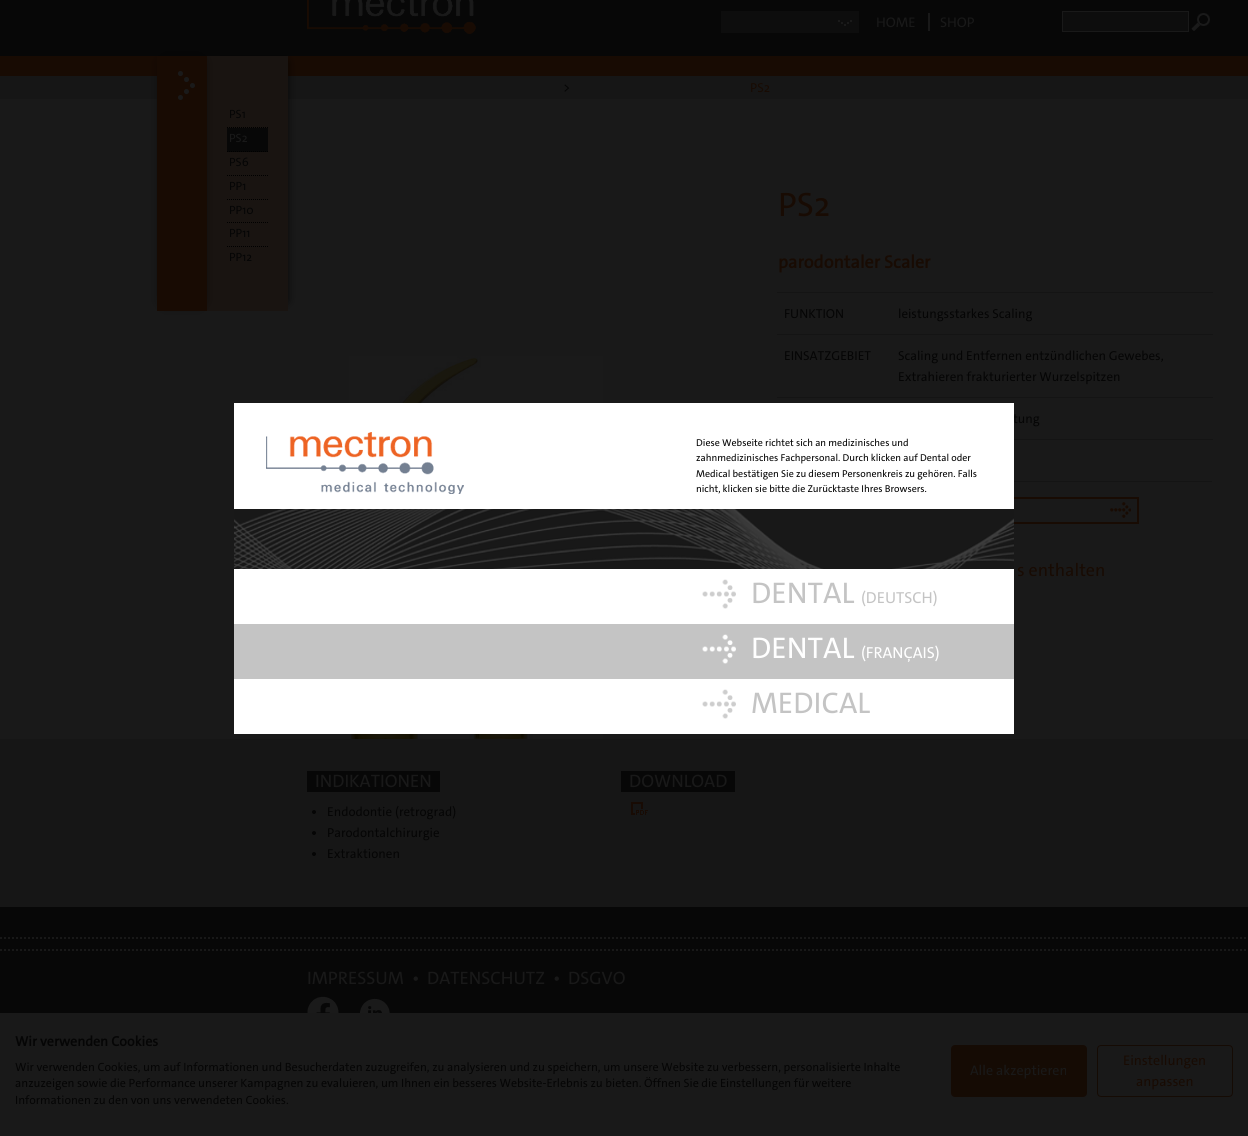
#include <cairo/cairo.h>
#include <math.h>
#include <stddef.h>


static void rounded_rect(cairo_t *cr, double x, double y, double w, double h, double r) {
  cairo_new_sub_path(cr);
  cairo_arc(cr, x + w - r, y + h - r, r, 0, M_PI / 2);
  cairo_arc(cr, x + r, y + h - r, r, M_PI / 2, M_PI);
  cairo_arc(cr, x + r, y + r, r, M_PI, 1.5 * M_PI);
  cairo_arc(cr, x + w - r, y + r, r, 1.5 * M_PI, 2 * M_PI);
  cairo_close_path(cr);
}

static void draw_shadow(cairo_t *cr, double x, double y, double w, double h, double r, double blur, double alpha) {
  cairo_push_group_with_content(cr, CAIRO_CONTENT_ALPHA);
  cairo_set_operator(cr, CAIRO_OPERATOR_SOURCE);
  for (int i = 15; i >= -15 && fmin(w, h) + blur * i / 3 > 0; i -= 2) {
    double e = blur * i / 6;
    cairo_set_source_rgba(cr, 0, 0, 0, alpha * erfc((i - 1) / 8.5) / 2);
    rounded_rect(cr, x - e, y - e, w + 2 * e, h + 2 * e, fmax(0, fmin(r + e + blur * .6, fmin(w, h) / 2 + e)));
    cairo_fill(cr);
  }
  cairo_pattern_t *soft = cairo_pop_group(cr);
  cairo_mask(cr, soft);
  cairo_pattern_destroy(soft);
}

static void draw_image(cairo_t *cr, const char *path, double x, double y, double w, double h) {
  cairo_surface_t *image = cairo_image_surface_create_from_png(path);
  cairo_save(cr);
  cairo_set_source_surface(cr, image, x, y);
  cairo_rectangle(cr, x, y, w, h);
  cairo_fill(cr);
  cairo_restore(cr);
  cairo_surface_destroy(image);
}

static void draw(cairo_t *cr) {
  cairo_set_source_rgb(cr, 7 / 255.0, 7 / 255.0, 7 / 255.0);
  cairo_paint(cr);
  draw_image(cr, "images/1.png", 307, 0, 169, 34);
  cairo_set_source_rgb(cr, 13 / 255.0, 13 / 255.0, 13 / 255.0);
  cairo_rectangle(cr, 721, 11, 138, 22);
  cairo_fill(cr);
  draw_image(cr, "images/2.png", 838, 20, 14, 6);
  cairo_set_source_rgb(cr, 25 / 255.0, 25 / 255.0, 25 / 255.0);
  cairo_rectangle(cr, 928, 13, 2, 18);
  cairo_fill(cr);
  cairo_set_source_rgb(cr, 13 / 255.0, 13 / 255.0, 13 / 255.0);
  cairo_rectangle(cr, 1062.5, 11.5, 126, 20);
  cairo_fill_preserve(cr);
  cairo_set_source_rgb(cr, 25 / 255.0, 25 / 255.0, 25 / 255.0);
  cairo_set_line_width(cr, 1);
  cairo_stroke(cr);
  draw_image(cr, "images/3.png", 1191, 13, 19, 18);
  cairo_set_source_rgb(cr, 24 / 255.0, 11 / 255.0, 3 / 255.0);
  cairo_rectangle(cr, 0, 56, 1248, 20);
  cairo_fill(cr);
  cairo_set_source_rgb(cr, 22 / 255.0, 22 / 255.0, 22 / 255.0);
  cairo_rectangle(cr, 0, 76, 1248, 23);
  cairo_fill(cr);
  cairo_set_source_rgb(cr, 25 / 255.0, 25 / 255.0, 25 / 255.0);
  cairo_rectangle(cr, 0, 99, 1248, 640);
  cairo_fill(cr);
  cairo_set_source_rgb(cr, 0, 0, 0);
  draw_shadow(cr, 221, 62, 65, 239, 0, 5, 1);
  cairo_set_source_rgb(cr, 25 / 255.0, 20 / 255.0, 17 / 255.0);
  cairo_rectangle(cr, 207, 56, 81, 255);
  cairo_fill(cr);
  cairo_set_source_rgb(cr, 0, 0, 0);
  draw_shadow(cr, 165, 62, 34, 239, 0, 7.5, 1);
  cairo_set_source_rgb(cr, 24 / 255.0, 11 / 255.0, 3 / 255.0);
  cairo_rectangle(cr, 157, 56, 50, 255);
  cairo_fill(cr);
  draw_image(cr, "images/4.png", 177, 71, 18, 29);
  cairo_new_path(cr);
  cairo_move_to(cr, 227, 127.5);
  cairo_line_to(cr, 268, 127.5);
  cairo_set_source_rgb(cr, 0, 0, 0);
  cairo_set_dash(cr, (double[]){1, 1}, 2, 0);
  cairo_stroke(cr);
  cairo_set_source_rgb(cr, 7 / 255.0, 7 / 255.0, 7 / 255.0);
  cairo_rectangle(cr, 227, 128, 41, 24);
  cairo_fill(cr);
  cairo_new_path(cr);
  cairo_move_to(cr, 227, 151.5);
  cairo_line_to(cr, 268, 151.5);
  cairo_move_to(cr, 227, 175.5);
  cairo_line_to(cr, 268, 175.5);
  cairo_move_to(cr, 227, 199.5);
  cairo_line_to(cr, 268, 199.5);
  cairo_set_source_rgb(cr, 0, 0, 0);
  cairo_stroke(cr);
  cairo_new_path(cr);
  cairo_move_to(cr, 227, 222.5);
  cairo_line_to(cr, 268, 222.5);
  cairo_move_to(cr, 227, 246.5);
  cairo_line_to(cr, 268, 246.5);
  cairo_stroke(cr);
  draw_image(cr, "images/5.png", 349, 356, 254, 383);
  cairo_set_source_rgb(cr, 20 / 255.0, 20 / 255.0, 20 / 255.0);
  cairo_rectangle(cr, 1014, 481, 198, 1);
  cairo_fill(cr);
  cairo_rectangle(cr, 777, 292, 436, 1);
  cairo_fill(cr);
  cairo_rectangle(cr, 777, 334, 436, 1);
  cairo_fill(cr);
  cairo_rectangle(cr, 777, 397, 436, 1);
  cairo_fill(cr);
  cairo_rectangle(cr, 1014, 439, 199, 1);
  cairo_fill(cr);
  cairo_rectangle(cr, 779, 498, 359, 25);
  cairo_set_source_rgb(cr, 24 / 255.0, 11 / 255.0, 3 / 255.0);
  cairo_set_line_width(cr, 2);
  cairo_set_dash(cr, NULL, 0, 0);
  cairo_stroke(cr);
  draw_image(cr, "images/6.png", 1110, 502, 21, 16);
  cairo_set_source_rgb(cr, 22 / 255.0, 22 / 255.0, 22 / 255.0);
  cairo_rectangle(cr, 0, 739, 1248, 168);
  cairo_fill(cr);
  cairo_set_source_rgb(cr, 7 / 255.0, 7 / 255.0, 7 / 255.0);
  cairo_rectangle(cr, 307, 771, 133, 21);
  cairo_fill(cr);
  cairo_set_source_rgb(cr, 5 / 255.0, 5 / 255.0, 5 / 255.0);
  cairo_arc(cr, 314, 812, 2, 0, 2 * M_PI);
  cairo_fill(cr);
  cairo_arc(cr, 314, 833, 2, 0, 2 * M_PI);
  cairo_fill(cr);
  cairo_arc(cr, 314, 854, 2, 0, 2 * M_PI);
  cairo_fill(cr);
  cairo_set_source_rgb(cr, 7 / 255.0, 7 / 255.0, 7 / 255.0);
  cairo_rectangle(cr, 621, 771, 114, 21);
  cairo_fill(cr);
  draw_image(cr, "images/7.png", 631, 802, 17, 13);
  cairo_new_path(cr);
  cairo_move_to(cr, 0, 938);
  cairo_line_to(cr, 1248, 938);
  cairo_set_source_rgb(cr, 24 / 255.0, 24 / 255.0, 24 / 255.0);
  cairo_set_dash(cr, (double[]){2, 2}, 2, 0);
  cairo_stroke(cr);
  cairo_new_path(cr);
  cairo_move_to(cr, 0, 950);
  cairo_line_to(cr, 1248, 950);
  cairo_stroke(cr);
  draw_image(cr, "images/12.png", 307, 996, 32, 17);
  draw_image(cr, "images/13.png", 360, 998, 30, 15);
  cairo_set_source_rgb(cr, 25 / 255.0, 25 / 255.0, 25 / 255.0);
  cairo_rectangle(cr, 0, 1013, 1248, 123);
  cairo_fill(cr);
  cairo_set_source_rgb(cr, 21 / 255.0, 11 / 255.0, 4 / 255.0);
  rounded_rect(cr, 951.5, 1045.5, 135, 51, 3.5);
  cairo_fill_preserve(cr);
  cairo_set_line_width(cr, 1);
  cairo_set_dash(cr, NULL, 0, 0);
  cairo_stroke(cr);
  rounded_rect(cr, 1097.5, 1045.5, 135, 51, 3.5);
  cairo_stroke(cr);
  cairo_select_font_face(cr, "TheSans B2", CAIRO_FONT_SLANT_NORMAL, CAIRO_FONT_WEIGHT_NORMAL);
  cairo_set_font_size(cr, 14);
  cairo_set_source_rgb(cr, 25 / 255.0, 25 / 255.0, 25 / 255.0);
  cairo_move_to(cr, 876, 27);
  cairo_show_text(cr, "HOME");
  cairo_move_to(cr, 940, 27);
  cairo_show_text(cr, "SHOP");
  cairo_set_font_size(cr, 13);
  cairo_set_source_rgb(cr, 5 / 255.0, 5 / 255.0, 5 / 255.0);
  cairo_move_to(cr, 563, 92);
  cairo_show_text(cr, ">");
  cairo_set_source_rgb(cr, 24 / 255.0, 11 / 255.0, 3 / 255.0);
  cairo_move_to(cr, 750, 92);
  cairo_show_text(cr, "PS2");
  cairo_set_font_size(cr, 12);
  cairo_set_source_rgb(cr, 5 / 255.0, 5 / 255.0, 5 / 255.0);
  cairo_move_to(cr, 229, 118);
  cairo_show_text(cr, "PS1");
  cairo_set_source_rgb(cr, 25 / 255.0, 25 / 255.0, 25 / 255.0);
  cairo_move_to(cr, 229, 142);
  cairo_show_text(cr, "PS2");
  cairo_set_source_rgb(cr, 5 / 255.0, 5 / 255.0, 5 / 255.0);
  cairo_move_to(cr, 229, 166);
  cairo_show_text(cr, "PS6");
  cairo_move_to(cr, 229, 190);
  cairo_show_text(cr, "PP1");
  cairo_move_to(cr, 229, 214);
  cairo_show_text(cr, "PP10");
  cairo_move_to(cr, 229, 237);
  cairo_show_text(cr, "PP11");
  cairo_move_to(cr, 229, 261);
  cairo_show_text(cr, "PP12");
  cairo_set_font_size(cr, 34);
  cairo_set_source_rgb(cr, 24 / 255.0, 11 / 255.0, 3 / 255.0);
  cairo_move_to(cr, 778, 216);
  cairo_show_text(cr, "PS2");
  cairo_select_font_face(cr, "TheSans B2", CAIRO_FONT_SLANT_NORMAL, CAIRO_FONT_WEIGHT_BOLD);
  cairo_set_font_size(cr, 18);
  cairo_move_to(cr, 778, 268);
  cairo_show_text(cr, "parodontaler Scaler");
  cairo_select_font_face(cr, "TheSans B2", CAIRO_FONT_SLANT_NORMAL, CAIRO_FONT_WEIGHT_NORMAL);
  cairo_set_font_size(cr, 13);
  cairo_set_source_rgb(cr, 5 / 255.0, 5 / 255.0, 5 / 255.0);
  cairo_move_to(cr, 784, 318);
  cairo_show_text(cr, "FUNKTION");
  cairo_move_to(cr, 898, 318);
  cairo_show_text(cr, "leistungsstarkes Scaling");
  cairo_move_to(cr, 784, 360);
  cairo_show_text(cr, "EINSATZGEBIET");
  cairo_move_to(cr, 898, 360);
  cairo_show_text(cr, "Scaling und Entfernen entzündlichen Gewebes,");
  cairo_move_to(cr, 898, 381);
  cairo_show_text(cr, "Extrahieren frakturierter Wurzelspitzen");
  cairo_move_to(cr, 1013, 423);
  cairo_show_text(cr, "tung");
  cairo_set_font_size(cr, 18);
  cairo_set_source_rgb(cr, 24 / 255.0, 11 / 255.0, 3 / 255.0);
  cairo_move_to(cr, 1017, 576);
  cairo_show_text(cr, "s enthalten");
  cairo_set_source_rgb(cr, 25 / 255.0, 25 / 255.0, 25 / 255.0);
  cairo_move_to(cr, 315, 787);
  cairo_show_text(cr, "INDIKATIONEN");
  cairo_set_font_size(cr, 13);
  cairo_set_source_rgb(cr, 5 / 255.0, 5 / 255.0, 5 / 255.0);
  cairo_move_to(cr, 327, 816);
  cairo_show_text(cr, "Endodontie (retrograd)");
  cairo_move_to(cr, 327, 837);
  cairo_show_text(cr, "Parodontalchirurgie");
  cairo_move_to(cr, 327, 858);
  cairo_show_text(cr, "Extraktionen");
  cairo_set_font_size(cr, 18);
  cairo_set_source_rgb(cr, 25 / 255.0, 25 / 255.0, 25 / 255.0);
  cairo_move_to(cr, 629, 787);
  cairo_show_text(cr, "DOWNLOAD");
  cairo_set_source_rgb(cr, 1, 1, 1);
  cairo_rectangle(cr, 234, 403, 780, 331);
  cairo_fill(cr);
  draw_image(cr, "images/8.png", 266, 432, 198, 62);
  cairo_set_font_size(cr, 10);
  cairo_set_source_rgb(cr, 5 / 255.0, 5 / 255.0, 5 / 255.0);
  cairo_move_to(cr, 696, 446);
  cairo_show_text(cr, "Diese Webseite richtet sich an medizinisches und");
  cairo_move_to(cr, 696, 461);
  cairo_show_text(cr, "zahnmedizinisches Fachpersonal. Durch klicken auf Dental oder");
  cairo_move_to(cr, 696, 477);
  cairo_show_text(cr, "Medical bestätigen Sie zu diesem Personenkreis zu gehören. Falls");
  cairo_move_to(cr, 696, 492);
  cairo_show_text(cr, "nicht, klicken sie bitte die Zurücktaste Ihres Browsers.");
  draw_image(cr, "images/9.png", 234, 509, 780, 60);
  draw_image(cr, "images/10.png", 702, 579, 34, 30);
  cairo_set_font_size(cr, 30);
  cairo_set_source_rgb(cr, 196 / 255.0, 196 / 255.0, 196 / 255.0);
  cairo_move_to(cr, 751, 603);
  cairo_show_text(cr, "DENTAL");
  cairo_set_font_size(cr, 16);
  cairo_move_to(cr, 861, 603);
  cairo_show_text(cr, "(DEUTSCH)");
  cairo_rectangle(cr, 234, 624, 780, 55);
  cairo_fill(cr);
  draw_image(cr, "images/11.png", 702, 634, 34, 30);
  cairo_set_font_size(cr, 30);
  cairo_set_source_rgb(cr, 1, 1, 1);
  cairo_move_to(cr, 751, 658);
  cairo_show_text(cr, "DENTAL");
  cairo_set_font_size(cr, 16);
  cairo_move_to(cr, 861, 658);
  cairo_show_text(cr, "(FRANÇAIS)");
  draw_image(cr, "images/10.png", 702, 689, 34, 30);
  cairo_set_font_size(cr, 30);
  cairo_set_source_rgb(cr, 196 / 255.0, 196 / 255.0, 196 / 255.0);
  cairo_move_to(cr, 751, 713);
  cairo_show_text(cr, "MEDICAL");
  cairo_set_font_size(cr, 18);
  cairo_set_source_rgb(cr, 25 / 255.0, 25 / 255.0, 25 / 255.0);
  cairo_move_to(cr, 307, 984);
  cairo_show_text(cr, "IMPRESSUM");
  cairo_move_to(cr, 412, 984);
  cairo_show_text(cr, "•");
  cairo_move_to(cr, 427, 984);
  cairo_show_text(cr, "DATENSCHUTZ");
  cairo_move_to(cr, 553, 984);
  cairo_show_text(cr, "•");
  cairo_move_to(cr, 568, 984);
  cairo_show_text(cr, "DSGVO");
  cairo_select_font_face(cr, "TheSans B2", CAIRO_FONT_SLANT_NORMAL, CAIRO_FONT_WEIGHT_BOLD);
  cairo_set_font_size(cr, 14);
  cairo_set_source_rgb(cr, 5 / 255.0, 5 / 255.0, 5 / 255.0);
  cairo_move_to(cr, 15, 1046);
  cairo_show_text(cr, "Wir verwenden Cookies");
  cairo_select_font_face(cr, "TheSans B2", CAIRO_FONT_SLANT_NORMAL, CAIRO_FONT_WEIGHT_NORMAL);
  cairo_set_font_size(cr, 12);
  cairo_move_to(cr, 15, 1071);
  cairo_show_text(cr, "Wir verwenden Cookies, um auf Informationen und Besucherdaten zuzugreifen, zu analysieren und zu speichern, um unsere Website zu verbessern, personalisierte Inhalte");
  cairo_move_to(cr, 15, 1087);
  cairo_show_text(cr, "anzuzeigen sowie die Performance unserer Kampagnen zu evaluieren, um Ihnen ein besseres Website-Erlebnis zu bieten. Öffnen Sie die Einstellungen für weitere");
  cairo_move_to(cr, 15, 1104);
  cairo_show_text(cr, "Informationen zu den von uns verwendeten Cookies.");
  cairo_set_font_size(cr, 14);
  cairo_set_source_rgb(cr, 25 / 255.0, 25 / 255.0, 25 / 255.0);
  cairo_move_to(cr, 970, 1075);
  cairo_show_text(cr, "Alle akzeptieren");
  cairo_set_source_rgb(cr, 24 / 255.0, 11 / 255.0, 3 / 255.0);
  cairo_move_to(cr, 1123, 1065);
  cairo_show_text(cr, "Einstellungen");
  cairo_move_to(cr, 1136, 1086);
  cairo_show_text(cr, "anpassen");
}

int main(void) {
  cairo_surface_t *surface = cairo_image_surface_create(CAIRO_FORMAT_RGB24, 1248, 1136);
  cairo_t *cr = cairo_create(surface);
  cairo_font_options_t *options = cairo_font_options_create();
  cairo_font_options_set_hint_metrics(options, CAIRO_HINT_METRICS_OFF);
  cairo_font_options_set_hint_style(options, CAIRO_HINT_STYLE_NONE);
  cairo_set_font_options(cr, options);
  cairo_set_miter_limit(cr, 4);
  draw(cr);
  cairo_surface_write_to_png(surface, "out.png");
  cairo_font_options_destroy(options);
  cairo_destroy(cr);
  cairo_surface_destroy(surface);
  return 0;
}
